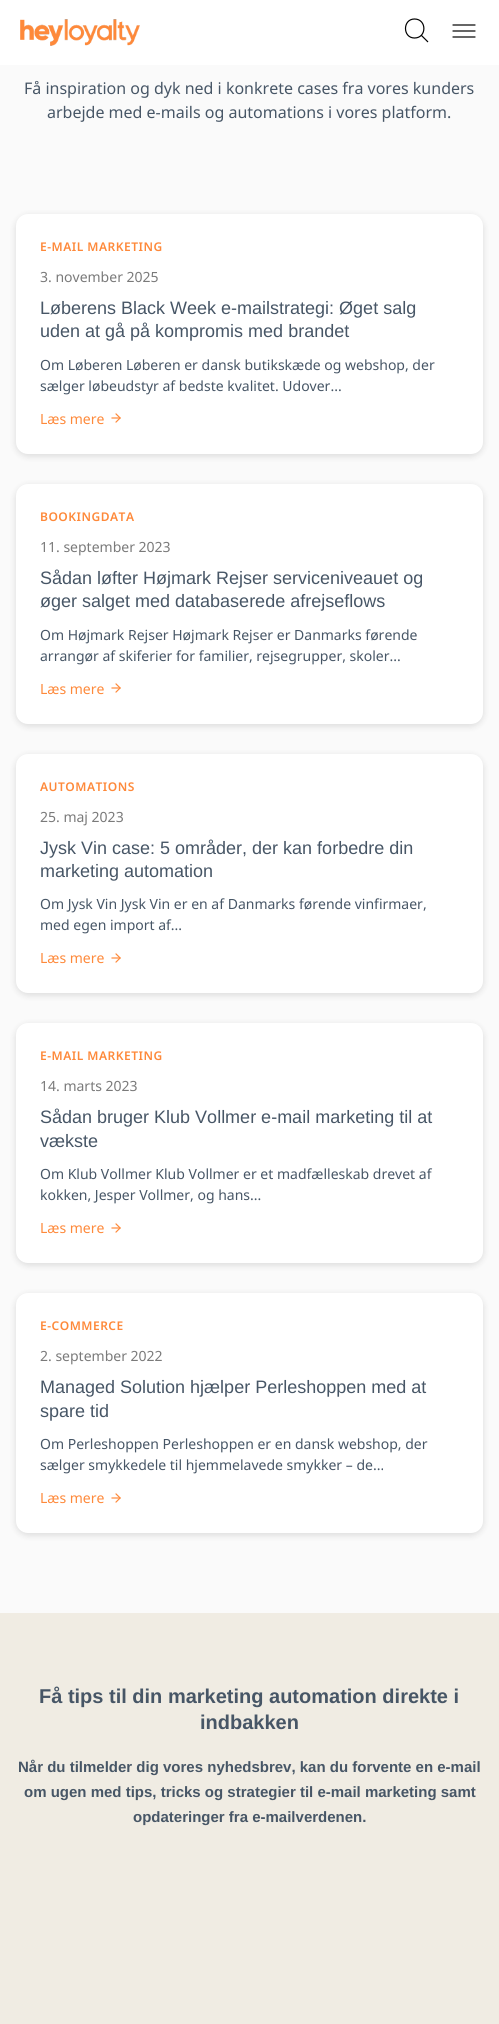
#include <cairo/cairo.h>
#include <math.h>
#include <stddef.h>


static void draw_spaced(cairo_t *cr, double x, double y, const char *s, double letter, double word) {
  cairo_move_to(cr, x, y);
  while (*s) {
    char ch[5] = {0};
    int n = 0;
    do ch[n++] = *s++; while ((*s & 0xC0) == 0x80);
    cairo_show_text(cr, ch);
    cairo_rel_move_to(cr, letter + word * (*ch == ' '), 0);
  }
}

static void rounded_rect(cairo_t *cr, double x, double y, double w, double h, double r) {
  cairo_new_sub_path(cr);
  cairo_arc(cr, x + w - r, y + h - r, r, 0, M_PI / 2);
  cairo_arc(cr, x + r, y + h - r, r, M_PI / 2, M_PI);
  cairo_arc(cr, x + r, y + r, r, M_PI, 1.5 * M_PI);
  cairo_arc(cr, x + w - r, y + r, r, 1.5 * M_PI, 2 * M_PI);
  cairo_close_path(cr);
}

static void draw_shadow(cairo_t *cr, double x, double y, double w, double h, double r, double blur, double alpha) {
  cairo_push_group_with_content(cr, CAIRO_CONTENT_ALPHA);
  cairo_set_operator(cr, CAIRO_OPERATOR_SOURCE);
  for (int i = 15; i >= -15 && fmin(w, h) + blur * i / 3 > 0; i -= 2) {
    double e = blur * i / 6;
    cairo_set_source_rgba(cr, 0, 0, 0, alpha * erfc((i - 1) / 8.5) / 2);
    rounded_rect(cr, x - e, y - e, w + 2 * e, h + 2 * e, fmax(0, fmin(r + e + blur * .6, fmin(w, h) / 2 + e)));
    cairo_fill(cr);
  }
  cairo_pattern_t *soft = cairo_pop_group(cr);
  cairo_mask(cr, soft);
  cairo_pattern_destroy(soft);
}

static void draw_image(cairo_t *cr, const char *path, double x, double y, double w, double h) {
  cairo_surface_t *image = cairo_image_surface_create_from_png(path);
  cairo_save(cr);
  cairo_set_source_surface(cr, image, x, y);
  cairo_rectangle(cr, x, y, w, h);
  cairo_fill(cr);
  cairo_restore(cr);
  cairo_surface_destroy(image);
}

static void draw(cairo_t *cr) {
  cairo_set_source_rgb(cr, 250 / 255.0, 250 / 255.0, 250 / 255.0);
  cairo_paint(cr);
  cairo_set_source_rgb(cr, 1, 1, 1);
  cairo_rectangle(cr, 0, 0, 499, 65);
  cairo_fill(cr);
  draw_image(cr, "images/1.png", 20, 19, 120, 27);
  cairo_new_path(cr);
  cairo_move_to(cr, 414.5, 38);
  cairo_curve_to(cr, 427, 38, 427, 19, 414.5, 19);
  cairo_curve_to(cr, 402.5, 19, 402.5, 38, 414.5, 38);
  cairo_close_path(cr);
  cairo_move_to(cr, 428, 42);
  cairo_line_to(cr, 421.5, 35.5);
  cairo_set_source_rgb(cr, 0, 0, 0);
  cairo_set_line_width(cr, 1.2);
  cairo_stroke(cr);
  cairo_new_path(cr);
  cairo_move_to(cr, 475, 25);
  cairo_line_to(cr, 453, 25);
  cairo_move_to(cr, 475, 31);
  cairo_line_to(cr, 453, 31);
  cairo_move_to(cr, 475, 37);
  cairo_line_to(cr, 453, 37);
  cairo_set_line_cap(cr, CAIRO_LINE_CAP_ROUND);
  cairo_set_line_join(cr, CAIRO_LINE_JOIN_ROUND);
  cairo_stroke(cr);
  cairo_set_source_rgb(cr, 0, 0, 0);
  draw_shadow(cr, 16, 216, 467, 240, 12, 3.5, 0.13);
  cairo_set_source_rgb(cr, 1, 1, 1);
  rounded_rect(cr, 16, 214, 467, 240, 12);
  cairo_fill(cr);
  draw_image(cr, "images/2.png", 111, 413, 10, 10);
  cairo_set_source_rgb(cr, 0, 0, 0);
  draw_shadow(cr, 16, 486, 467, 240, 12, 3.5, 0.13);
  cairo_set_source_rgb(cr, 1, 1, 1);
  rounded_rect(cr, 16, 484, 467, 240, 12);
  cairo_fill(cr);
  draw_image(cr, "images/2.png", 111, 683, 10, 10);
  cairo_set_source_rgb(cr, 0, 0, 0);
  draw_shadow(cr, 16, 756, 467, 239, 12, 3.5, 0.13);
  cairo_set_source_rgb(cr, 1, 1, 1);
  rounded_rect(cr, 16, 754, 467, 239, 12);
  cairo_fill(cr);
  draw_image(cr, "images/2.png", 111, 953, 10, 10);
  cairo_set_source_rgb(cr, 0, 0, 0);
  draw_shadow(cr, 16, 1025, 467, 240, 12, 3.5, 0.13);
  cairo_set_source_rgb(cr, 1, 1, 1);
  rounded_rect(cr, 16, 1023, 467, 240, 12);
  cairo_fill(cr);
  draw_image(cr, "images/2.png", 111, 1223, 10, 10);
  cairo_set_source_rgb(cr, 0, 0, 0);
  draw_shadow(cr, 16, 1295, 467, 240, 12, 3.5, 0.13);
  cairo_set_source_rgb(cr, 1, 1, 1);
  rounded_rect(cr, 16, 1293, 467, 240, 12);
  cairo_fill(cr);
  draw_image(cr, "images/2.png", 111, 1493, 10, 10);
  cairo_set_source_rgb(cr, 240 / 255.0, 236 / 255.0, 227 / 255.0);
  cairo_rectangle(cr, 0, 1613, 499, 411);
  cairo_fill(cr);
  cairo_select_font_face(cr, "Noto Sans", CAIRO_FONT_SLANT_NORMAL, CAIRO_FONT_WEIGHT_NORMAL);
  cairo_set_font_size(cr, 16);
  cairo_set_source_rgb(cr, 71 / 255.0, 86 / 255.0, 102 / 255.0);
  cairo_move_to(cr, 24, 94);
  cairo_show_text(cr, "Få inspiration og dyk ned i konkrete cases fra vores kunders");
  cairo_move_to(cr, 47, 118);
  cairo_show_text(cr, "arbejde med e-mails og automations i vores platform.");
  cairo_select_font_face(cr, "Noto Sans SemiBold", CAIRO_FONT_SLANT_NORMAL, CAIRO_FONT_WEIGHT_NORMAL);
  cairo_set_font_size(cr, 12);
  cairo_set_source_rgb(cr, 254 / 255.0, 137 / 255.0, 58 / 255.0);
  draw_spaced(cr, 40, 251, "E-MAIL MARKETING", 0.5, 0);
  cairo_select_font_face(cr, "Noto Sans", CAIRO_FONT_SLANT_NORMAL, CAIRO_FONT_WEIGHT_NORMAL);
  cairo_set_font_size(cr, 14);
  cairo_set_source_rgb(cr, 122 / 255.0, 122 / 255.0, 122 / 255.0);
  cairo_move_to(cr, 40, 282);
  cairo_show_text(cr, "3. november 2025");
  cairo_select_font_face(cr, "Liberation Sans", CAIRO_FONT_SLANT_NORMAL, CAIRO_FONT_WEIGHT_NORMAL);
  cairo_set_font_size(cr, 18);
  cairo_set_source_rgb(cr, 71 / 255.0, 86 / 255.0, 102 / 255.0);
  cairo_move_to(cr, 40, 314);
  cairo_show_text(cr, "Løberens Black Week e-mailstrategi: Øget salg");
  cairo_move_to(cr, 40, 337);
  cairo_show_text(cr, "uden at gå på kompromis med brandet");
  cairo_select_font_face(cr, "Noto Sans", CAIRO_FONT_SLANT_NORMAL, CAIRO_FONT_WEIGHT_NORMAL);
  cairo_set_font_size(cr, 14);
  cairo_move_to(cr, 40, 370);
  cairo_show_text(cr, "Om Løberen Løberen er dansk butikskæde og webshop, der");
  cairo_move_to(cr, 40, 391);
  cairo_show_text(cr, "sælger løbeudstyr af bedste kvalitet. Udover...");
  cairo_set_source_rgb(cr, 254 / 255.0, 137 / 255.0, 58 / 255.0);
  cairo_move_to(cr, 40, 424);
  cairo_show_text(cr, "Læs mere");
  cairo_select_font_face(cr, "Noto Sans SemiBold", CAIRO_FONT_SLANT_NORMAL, CAIRO_FONT_WEIGHT_NORMAL);
  cairo_set_font_size(cr, 12);
  draw_spaced(cr, 40, 521, "BOOKINGDATA", 0.5, 0);
  cairo_select_font_face(cr, "Noto Sans", CAIRO_FONT_SLANT_NORMAL, CAIRO_FONT_WEIGHT_NORMAL);
  cairo_set_font_size(cr, 14);
  cairo_set_source_rgb(cr, 122 / 255.0, 122 / 255.0, 122 / 255.0);
  cairo_move_to(cr, 40, 552);
  cairo_show_text(cr, "11. september 2023");
  cairo_select_font_face(cr, "Liberation Sans", CAIRO_FONT_SLANT_NORMAL, CAIRO_FONT_WEIGHT_NORMAL);
  cairo_set_font_size(cr, 18);
  cairo_set_source_rgb(cr, 71 / 255.0, 86 / 255.0, 102 / 255.0);
  cairo_move_to(cr, 40, 584);
  cairo_show_text(cr, "Sådan løfter Højmark Rejser serviceniveauet og");
  cairo_move_to(cr, 40, 607);
  cairo_show_text(cr, "øger salget med databaserede afrejseflows");
  cairo_select_font_face(cr, "Noto Sans", CAIRO_FONT_SLANT_NORMAL, CAIRO_FONT_WEIGHT_NORMAL);
  cairo_set_font_size(cr, 14);
  cairo_move_to(cr, 40, 640);
  cairo_show_text(cr, "Om Højmark Rejser Højmark Rejser er Danmarks førende");
  cairo_move_to(cr, 40, 661);
  cairo_show_text(cr, "arrangør af skiferier for familier, rejsegrupper, skoler...");
  cairo_set_source_rgb(cr, 254 / 255.0, 137 / 255.0, 58 / 255.0);
  cairo_move_to(cr, 40, 694);
  cairo_show_text(cr, "Læs mere");
  cairo_select_font_face(cr, "Noto Sans SemiBold", CAIRO_FONT_SLANT_NORMAL, CAIRO_FONT_WEIGHT_NORMAL);
  cairo_set_font_size(cr, 12);
  draw_spaced(cr, 40, 791, "AUTOMATIONS", 0.5, 0);
  cairo_select_font_face(cr, "Noto Sans", CAIRO_FONT_SLANT_NORMAL, CAIRO_FONT_WEIGHT_NORMAL);
  cairo_set_font_size(cr, 14);
  cairo_set_source_rgb(cr, 122 / 255.0, 122 / 255.0, 122 / 255.0);
  cairo_move_to(cr, 40, 822);
  cairo_show_text(cr, "25. maj 2023");
  cairo_select_font_face(cr, "Liberation Sans", CAIRO_FONT_SLANT_NORMAL, CAIRO_FONT_WEIGHT_NORMAL);
  cairo_set_font_size(cr, 18);
  cairo_set_source_rgb(cr, 71 / 255.0, 86 / 255.0, 102 / 255.0);
  cairo_move_to(cr, 40, 854);
  cairo_show_text(cr, "Jysk Vin case: 5 områder, der kan forbedre din");
  cairo_move_to(cr, 40, 877);
  cairo_show_text(cr, "marketing automation");
  cairo_select_font_face(cr, "Noto Sans", CAIRO_FONT_SLANT_NORMAL, CAIRO_FONT_WEIGHT_NORMAL);
  cairo_set_font_size(cr, 14);
  cairo_move_to(cr, 40, 909);
  cairo_show_text(cr, "Om Jysk Vin Jysk Vin er en af Danmarks førende vinfirmaer,");
  cairo_move_to(cr, 40, 930);
  cairo_show_text(cr, "med egen import af...");
  cairo_set_source_rgb(cr, 254 / 255.0, 137 / 255.0, 58 / 255.0);
  cairo_move_to(cr, 40, 963);
  cairo_show_text(cr, "Læs mere");
  cairo_select_font_face(cr, "Noto Sans SemiBold", CAIRO_FONT_SLANT_NORMAL, CAIRO_FONT_WEIGHT_NORMAL);
  cairo_set_font_size(cr, 12);
  draw_spaced(cr, 40, 1060, "E-MAIL MARKETING", 0.5, 0);
  cairo_select_font_face(cr, "Noto Sans", CAIRO_FONT_SLANT_NORMAL, CAIRO_FONT_WEIGHT_NORMAL);
  cairo_set_font_size(cr, 14);
  cairo_set_source_rgb(cr, 122 / 255.0, 122 / 255.0, 122 / 255.0);
  cairo_move_to(cr, 40, 1091);
  cairo_show_text(cr, "14. marts 2023");
  cairo_select_font_face(cr, "Liberation Sans", CAIRO_FONT_SLANT_NORMAL, CAIRO_FONT_WEIGHT_NORMAL);
  cairo_set_font_size(cr, 18);
  cairo_set_source_rgb(cr, 71 / 255.0, 86 / 255.0, 102 / 255.0);
  cairo_move_to(cr, 40, 1123);
  cairo_show_text(cr, "Sådan bruger Klub Vollmer e-mail marketing til at");
  cairo_move_to(cr, 40, 1147);
  cairo_show_text(cr, "vækste");
  cairo_select_font_face(cr, "Noto Sans", CAIRO_FONT_SLANT_NORMAL, CAIRO_FONT_WEIGHT_NORMAL);
  cairo_set_font_size(cr, 14);
  cairo_move_to(cr, 40, 1179);
  cairo_show_text(cr, "Om Klub Vollmer Klub Vollmer er et madfælleskab drevet af");
  cairo_move_to(cr, 40, 1200);
  cairo_show_text(cr, "kokken, Jesper Vollmer, og hans...");
  cairo_set_source_rgb(cr, 254 / 255.0, 137 / 255.0, 58 / 255.0);
  cairo_move_to(cr, 40, 1233);
  cairo_show_text(cr, "Læs mere");
  cairo_select_font_face(cr, "Noto Sans SemiBold", CAIRO_FONT_SLANT_NORMAL, CAIRO_FONT_WEIGHT_NORMAL);
  cairo_set_font_size(cr, 12);
  draw_spaced(cr, 40, 1330, "E-COMMERCE", 0.5, 0);
  cairo_select_font_face(cr, "Noto Sans", CAIRO_FONT_SLANT_NORMAL, CAIRO_FONT_WEIGHT_NORMAL);
  cairo_set_font_size(cr, 14);
  cairo_set_source_rgb(cr, 122 / 255.0, 122 / 255.0, 122 / 255.0);
  cairo_move_to(cr, 40, 1361);
  cairo_show_text(cr, "2. september 2022");
  cairo_select_font_face(cr, "Liberation Sans", CAIRO_FONT_SLANT_NORMAL, CAIRO_FONT_WEIGHT_NORMAL);
  cairo_set_font_size(cr, 18);
  cairo_set_source_rgb(cr, 71 / 255.0, 86 / 255.0, 102 / 255.0);
  cairo_move_to(cr, 40, 1393);
  cairo_show_text(cr, "Managed Solution hjælper Perleshoppen med at");
  cairo_move_to(cr, 40, 1417);
  cairo_show_text(cr, "spare tid");
  cairo_select_font_face(cr, "Noto Sans", CAIRO_FONT_SLANT_NORMAL, CAIRO_FONT_WEIGHT_NORMAL);
  cairo_set_font_size(cr, 14);
  cairo_move_to(cr, 40, 1449);
  cairo_show_text(cr, "Om Perleshoppen Perleshoppen er en dansk webshop, der");
  cairo_move_to(cr, 40, 1470);
  cairo_show_text(cr, "sælger smykkedele til hjemmelavede smykker – de...");
  cairo_set_source_rgb(cr, 254 / 255.0, 137 / 255.0, 58 / 255.0);
  cairo_move_to(cr, 40, 1503);
  cairo_show_text(cr, "Læs mere");
  cairo_select_font_face(cr, "Liberation Sans", CAIRO_FONT_SLANT_NORMAL, CAIRO_FONT_WEIGHT_BOLD);
  cairo_set_font_size(cr, 20);
  cairo_set_source_rgb(cr, 71 / 255.0, 86 / 255.0, 102 / 255.0);
  cairo_move_to(cr, 39, 1703);
  cairo_show_text(cr, "Få tips til din marketing automation direkte i");
  cairo_move_to(cr, 200, 1729);
  cairo_show_text(cr, "indbakken");
  cairo_set_font_size(cr, 15);
  cairo_move_to(cr, 18, 1772);
  cairo_show_text(cr, "Når du tilmelder dig vores nyhedsbrev, kan du forvente en e-mail");
  cairo_move_to(cr, 24, 1797);
  cairo_show_text(cr, "om ugen med tips, tricks og strategier til e-mail marketing samt");
  cairo_move_to(cr, 133, 1822);
  cairo_show_text(cr, "opdateringer fra e-mailverdenen.");
}

int main(void) {
  cairo_surface_t *surface = cairo_image_surface_create(CAIRO_FORMAT_RGB24, 499, 2024);
  cairo_t *cr = cairo_create(surface);
  cairo_font_options_t *options = cairo_font_options_create();
  cairo_font_options_set_hint_metrics(options, CAIRO_HINT_METRICS_OFF);
  cairo_font_options_set_hint_style(options, CAIRO_HINT_STYLE_NONE);
  cairo_set_font_options(cr, options);
  cairo_set_miter_limit(cr, 4);
  draw(cr);
  cairo_surface_write_to_png(surface, "out.png");
  cairo_font_options_destroy(options);
  cairo_destroy(cr);
  cairo_surface_destroy(surface);
  return 0;
}
